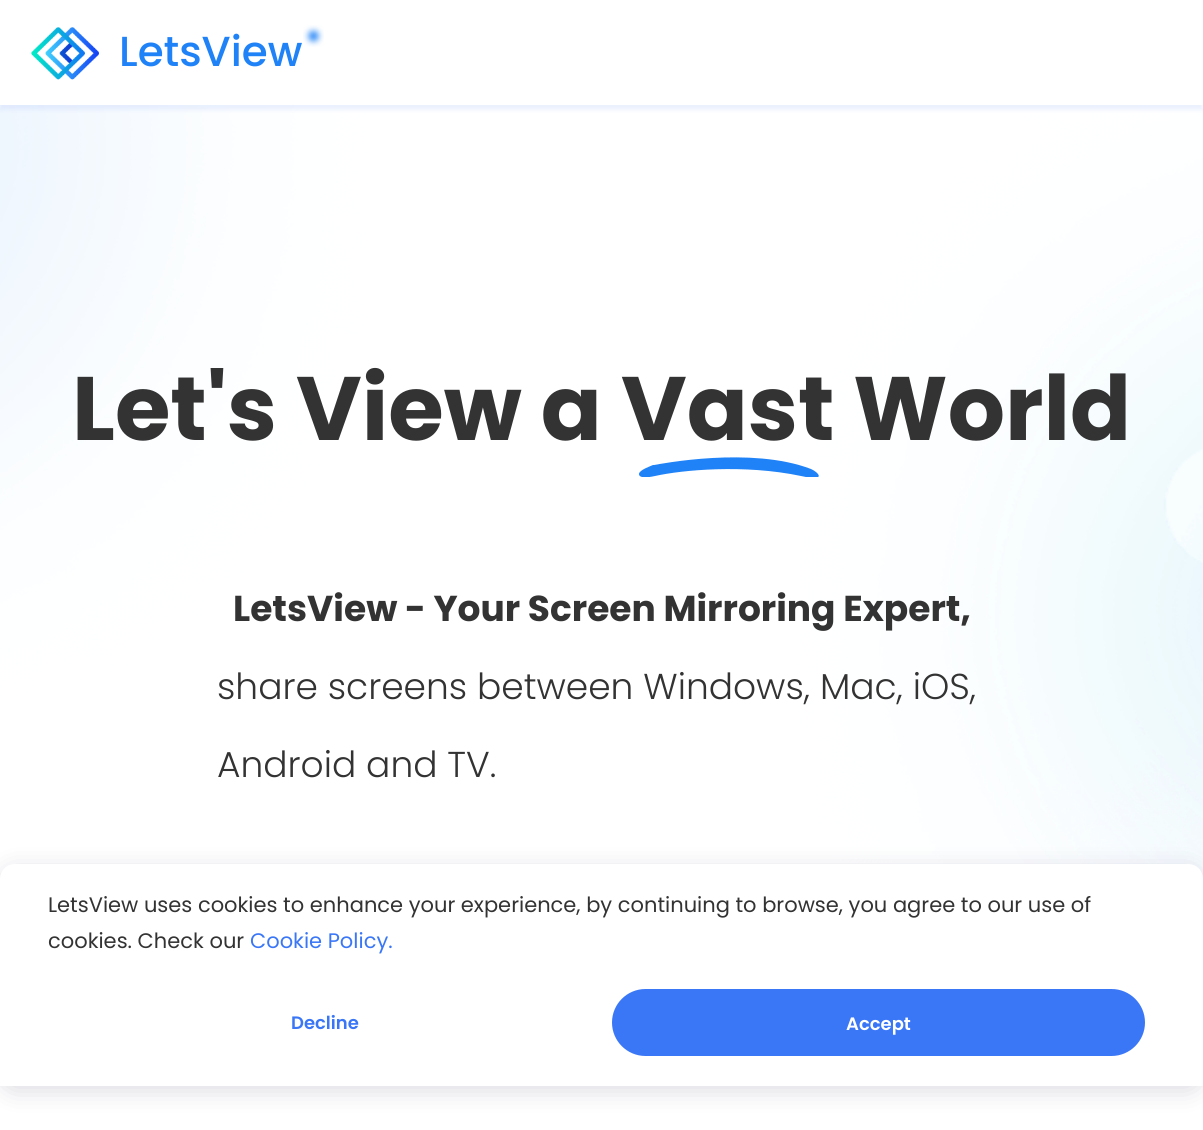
#include <cairo/cairo.h>
#include <math.h>
#include <stddef.h>


static void rounded_rect(cairo_t *cr, double x, double y, double w, double h, double r) {
  cairo_new_sub_path(cr);
  cairo_arc(cr, x + w - r, y + h - r, r, 0, M_PI / 2);
  cairo_arc(cr, x + r, y + h - r, r, M_PI / 2, M_PI);
  cairo_arc(cr, x + r, y + r, r, M_PI, 1.5 * M_PI);
  cairo_arc(cr, x + w - r, y + r, r, 1.5 * M_PI, 2 * M_PI);
  cairo_close_path(cr);
}

static void draw_shadow(cairo_t *cr, double x, double y, double w, double h, double r, double blur, double alpha) {
  cairo_push_group_with_content(cr, CAIRO_CONTENT_ALPHA);
  cairo_set_operator(cr, CAIRO_OPERATOR_SOURCE);
  for (int i = 15; i >= -15 && fmin(w, h) + blur * i / 3 > 0; i -= 2) {
    double e = blur * i / 6;
    cairo_set_source_rgba(cr, 0, 0, 0, alpha * erfc((i - 1) / 8.5) / 2);
    rounded_rect(cr, x - e, y - e, w + 2 * e, h + 2 * e, fmax(0, fmin(r + e + blur * .6, fmin(w, h) / 2 + e)));
    cairo_fill(cr);
  }
  cairo_pattern_t *soft = cairo_pop_group(cr);
  cairo_mask(cr, soft);
  cairo_pattern_destroy(soft);
}

static void draw_image(cairo_t *cr, const char *path, double x, double y, double w, double h) {
  cairo_surface_t *image = cairo_image_surface_create_from_png(path);
  cairo_save(cr);
  cairo_set_source_surface(cr, image, x, y);
  cairo_rectangle(cr, x, y, w, h);
  cairo_fill(cr);
  cairo_restore(cr);
  cairo_surface_destroy(image);
}

static void draw(cairo_t *cr) {
  cairo_set_source_rgb(cr, 1, 1, 1);
  cairo_paint(cr);
  draw_image(cr, "images/3.png", 0, 105, 1203, 774);
  cairo_save(cr);
  cairo_rectangle(cr, 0, 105, 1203, 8);
  cairo_clip(cr);
  cairo_set_source_rgb(cr, 190 / 255.0, 207 / 255.0, 252 / 255.0);
  draw_shadow(cr, 0, 5, 1203, 105, 0, 2, 0.3);
  cairo_restore(cr);
  draw_image(cr, "images/1.png", 31, 27, 68, 53);
  draw_image(cr, "images/2.png", 303, 25, 21, 22);
  cairo_save(cr);
  cairo_rectangle(cr, 639, 456, 180, 21);
  cairo_clip(cr);
  cairo_set_source_rgb(cr, 31 / 255.0, 130 / 255.0, 247 / 255.0);
  cairo_new_path(cr);
  cairo_move_to(cr, 639, 474);
  cairo_curve_to(cr, 639, 478, 646, 478, 655, 476);
  cairo_curve_to(cr, 682, 470, 744, 464, 801, 476);
  cairo_curve_to(cr, 828, 482, 818, 472, 811, 469);
  cairo_curve_to(cr, 751, 446, 660, 464, 654, 465);
  cairo_line_to(cr, 653, 465);
  cairo_curve_to(cr, 651, 466, 639, 470, 639, 474);
  cairo_close_path(cr);
  cairo_fill(cr);
  cairo_restore(cr);
  cairo_set_source_rgb(cr, 141 / 255.0, 140 / 255.0, 163 / 255.0);
  draw_shadow(cr, 0, 869, 1203, 222, 15, 12, 0.3);
  cairo_set_source_rgb(cr, 1, 1, 1);
  cairo_new_path(cr);
  cairo_move_to(cr, 15, 864);
  cairo_line_to(cr, 1188, 864);
  cairo_curve_to(cr, 1196.5, 864, 1203, 870.5, 1203, 879);
  cairo_line_to(cr, 1203, 1086);
  cairo_line_to(cr, 0, 1086);
  cairo_line_to(cr, 0, 879);
  cairo_curve_to(cr, 0, 870.5, 6.5, 864, 15, 864);
  cairo_close_path(cr);
  cairo_fill(cr);
  cairo_set_source_rgb(cr, 58 / 255.0, 119 / 255.0, 247 / 255.0);
  rounded_rect(cr, 613, 990, 531, 65, 32.5);
  cairo_fill_preserve(cr);
  cairo_stroke(cr);
  cairo_select_font_face(cr, "Poppins Medium", CAIRO_FONT_SLANT_NORMAL, CAIRO_FONT_WEIGHT_NORMAL);
  cairo_set_font_size(cr, 42);
  cairo_set_source_rgb(cr, 31 / 255.0, 130 / 255.0, 247 / 255.0);
  cairo_move_to(cr, 119, 66);
  cairo_show_text(cr, "LetsView");
  cairo_select_font_face(cr, "Poppins", CAIRO_FONT_SLANT_NORMAL, CAIRO_FONT_WEIGHT_BOLD);
  cairo_set_font_size(cr, 90);
  cairo_set_source_rgb(cr, 51 / 255.0, 51 / 255.0, 51 / 255.0);
  cairo_move_to(cr, 72, 440);
  cairo_show_text(cr, "Let's View a Vast");
  cairo_move_to(cr, 853, 440);
  cairo_show_text(cr, "World");
  cairo_set_font_size(cr, 36);
  cairo_move_to(cr, 233, 621);
  cairo_show_text(cr, "LetsView - Your Screen Mirroring Expert,");
  cairo_select_font_face(cr, "Poppins Light", CAIRO_FONT_SLANT_NORMAL, CAIRO_FONT_WEIGHT_NORMAL);
  cairo_move_to(cr, 217, 699);
  cairo_show_text(cr, "share screens between Windows, Mac, iOS,");
  cairo_move_to(cr, 217, 777);
  cairo_show_text(cr, "Android and TV.");
  cairo_select_font_face(cr, "Poppins", CAIRO_FONT_SLANT_NORMAL, CAIRO_FONT_WEIGHT_NORMAL);
  cairo_set_font_size(cr, 21);
  cairo_move_to(cr, 48, 912);
  cairo_show_text(cr, "LetsView uses cookies to enhance your experience, by continuing to browse, you agree to our use of");
  cairo_move_to(cr, 48, 948);
  cairo_show_text(cr, "cookies. Check our");
  cairo_set_source_rgb(cr, 58 / 255.0, 119 / 255.0, 247 / 255.0);
  cairo_move_to(cr, 250, 948);
  cairo_show_text(cr, "Cookie Policy.");
  cairo_select_font_face(cr, "Poppins SemiBold", CAIRO_FONT_SLANT_NORMAL, CAIRO_FONT_WEIGHT_NORMAL);
  cairo_set_font_size(cr, 18);
  cairo_move_to(cr, 291, 1029);
  cairo_show_text(cr, "Decline");
  cairo_set_source_rgb(cr, 1, 1, 1);
  cairo_move_to(cr, 846, 1030);
  cairo_show_text(cr, "Accept");
}

int main(void) {
  cairo_surface_t *surface = cairo_image_surface_create(CAIRO_FORMAT_RGB24, 1203, 1130);
  cairo_t *cr = cairo_create(surface);
  cairo_font_options_t *options = cairo_font_options_create();
  cairo_font_options_set_hint_metrics(options, CAIRO_HINT_METRICS_OFF);
  cairo_font_options_set_hint_style(options, CAIRO_HINT_STYLE_NONE);
  cairo_set_font_options(cr, options);
  cairo_set_miter_limit(cr, 4);
  draw(cr);
  cairo_surface_write_to_png(surface, "out.png");
  cairo_font_options_destroy(options);
  cairo_destroy(cr);
  cairo_surface_destroy(surface);
  return 0;
}
